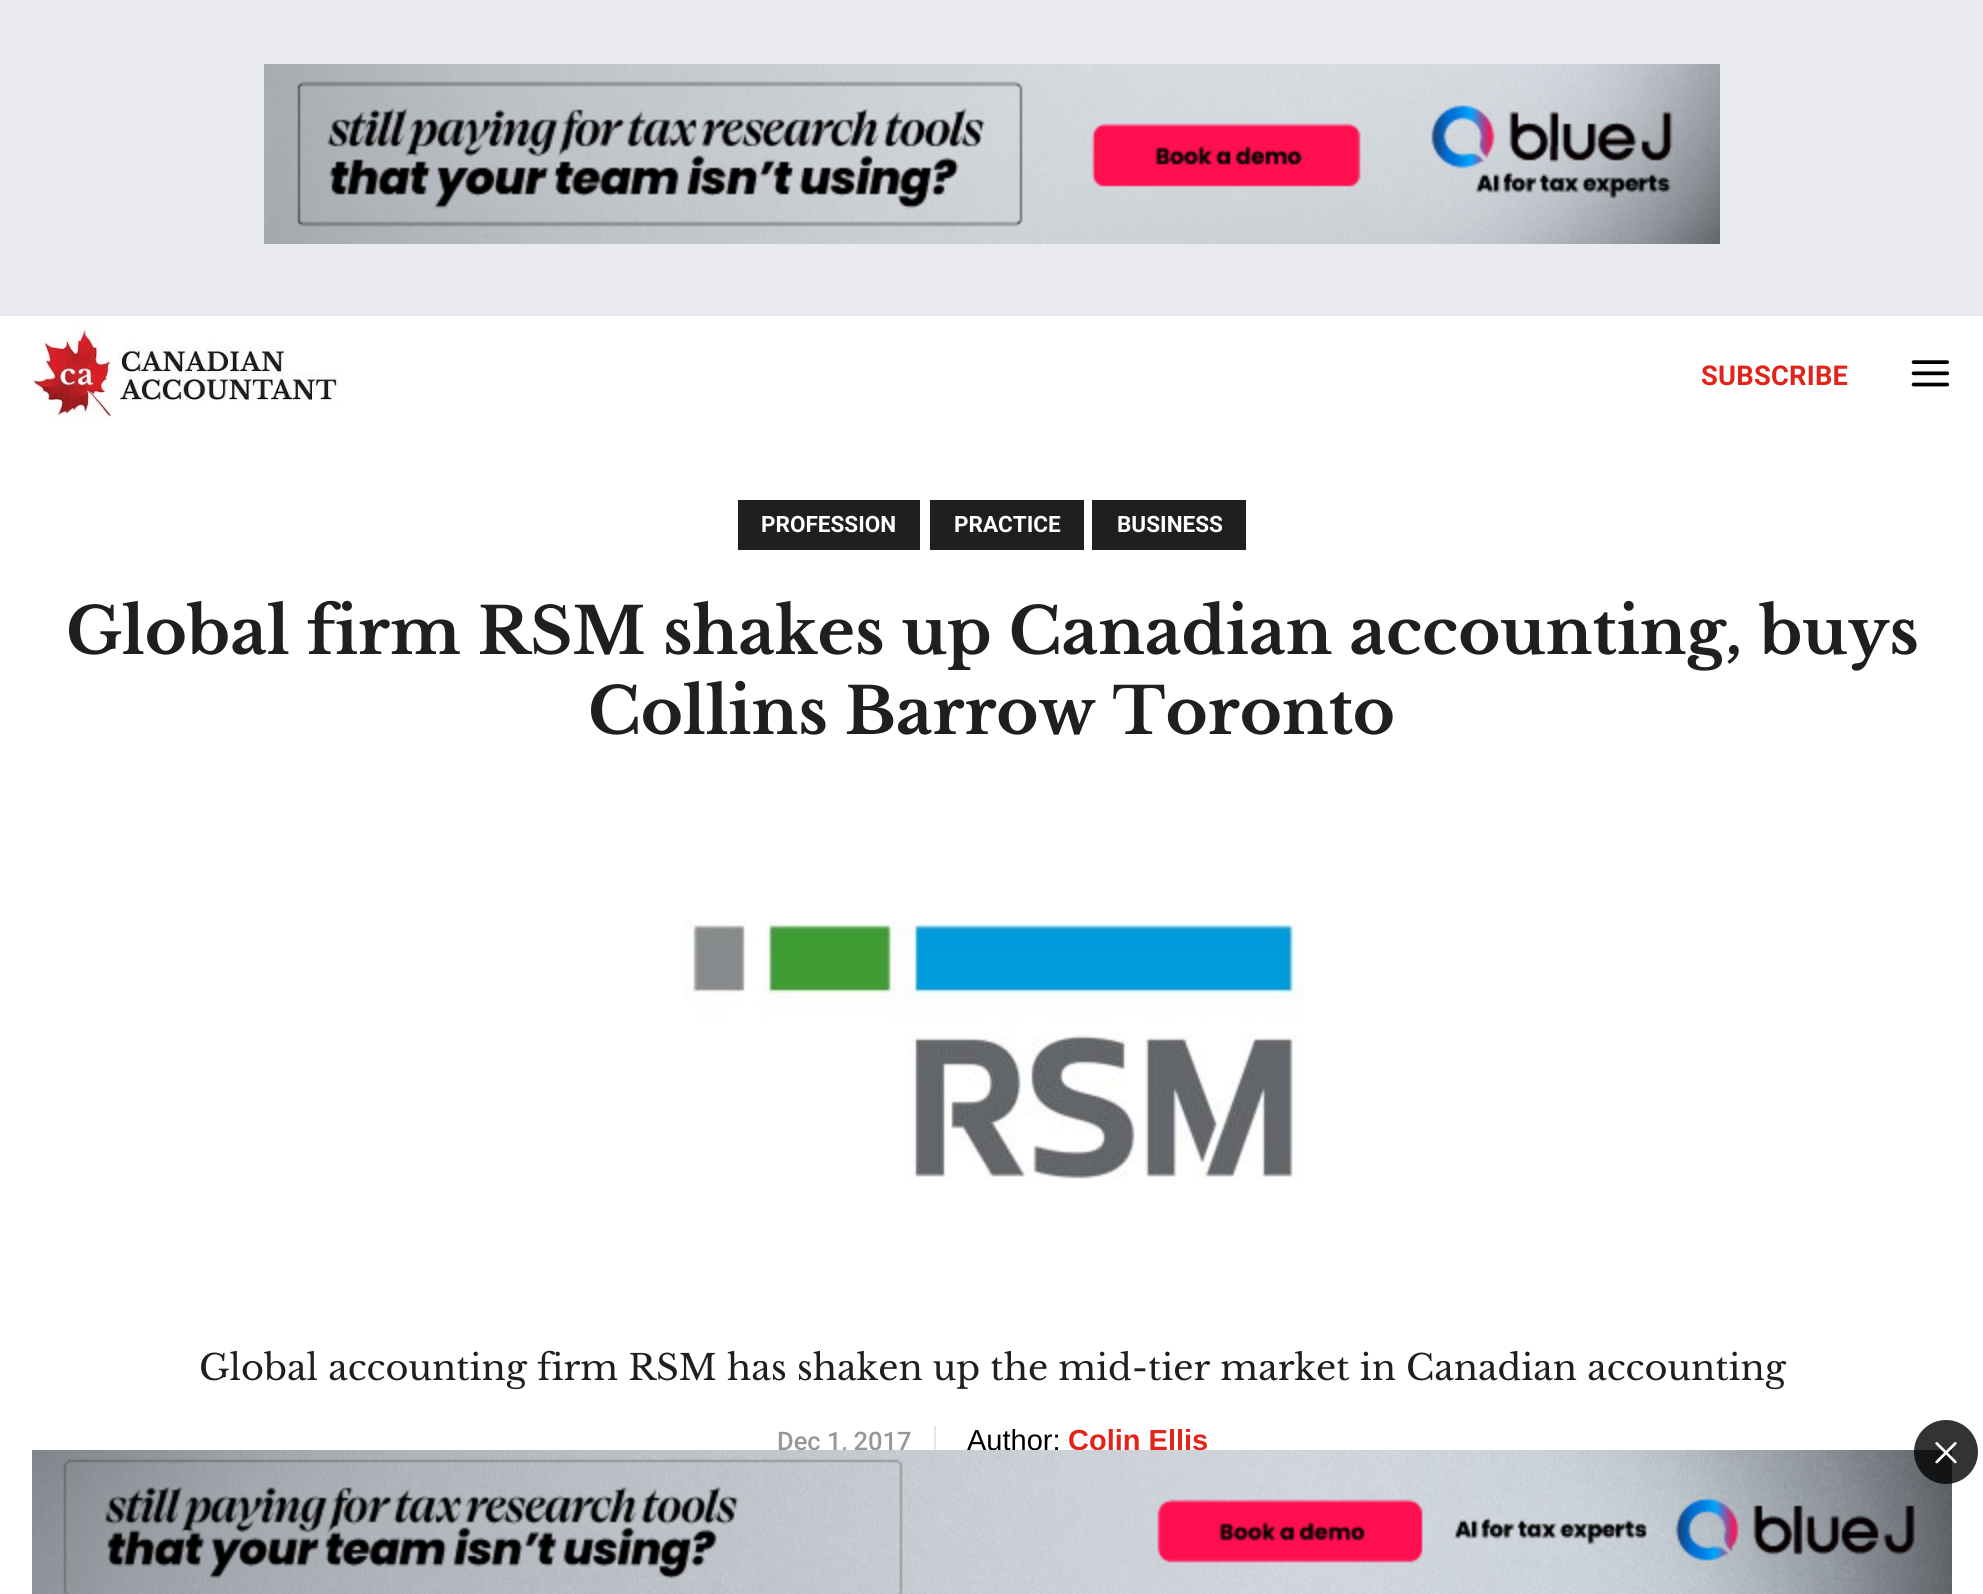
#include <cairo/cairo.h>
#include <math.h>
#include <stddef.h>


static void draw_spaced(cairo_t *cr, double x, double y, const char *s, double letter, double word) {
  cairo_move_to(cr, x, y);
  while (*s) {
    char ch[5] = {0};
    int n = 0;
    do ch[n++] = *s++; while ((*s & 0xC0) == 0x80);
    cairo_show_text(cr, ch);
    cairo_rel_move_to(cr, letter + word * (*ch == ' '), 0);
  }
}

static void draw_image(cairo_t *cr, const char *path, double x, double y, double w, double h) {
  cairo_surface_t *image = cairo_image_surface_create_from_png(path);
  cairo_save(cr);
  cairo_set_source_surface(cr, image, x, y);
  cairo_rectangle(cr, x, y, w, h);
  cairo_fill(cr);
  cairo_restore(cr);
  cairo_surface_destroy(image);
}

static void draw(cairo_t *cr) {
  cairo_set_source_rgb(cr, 1, 1, 1);
  cairo_paint(cr);
  cairo_set_source_rgb(cr, 233 / 255.0, 235 / 255.0, 240 / 255.0);
  cairo_rectangle(cr, 0, 0, 1983, 316);
  cairo_fill(cr);
  draw_image(cr, "images/1.png", 264, 64, 1456, 180);
  draw_image(cr, "images/2.png", 32, 326, 307, 95);
  draw_image(cr, "images/3.png", 1911, 360, 39, 27);
  cairo_set_source_rgb(cr, 32 / 255.0, 30 / 255.0, 31 / 255.0);
  cairo_rectangle(cr, 738, 500, 182, 50);
  cairo_fill(cr);
  cairo_rectangle(cr, 930, 500, 154, 50);
  cairo_fill(cr);
  cairo_rectangle(cr, 1092, 500, 154, 50);
  cairo_fill(cr);
  draw_image(cr, "images/4.png", 684, 921, 620, 258);
  cairo_set_source_rgb(cr, 231 / 255.0, 231 / 255.0, 231 / 255.0);
  cairo_rectangle(cr, 934, 1426, 2, 30);
  cairo_fill(cr);
  cairo_select_font_face(cr, "Roboto", CAIRO_FONT_SLANT_NORMAL, CAIRO_FONT_WEIGHT_BOLD);
  cairo_set_font_size(cr, 27.25);
  cairo_set_source_rgb(cr, 226 / 255.0, 35 / 255.0, 26 / 255.0);
  draw_spaced(cr, 1701, 385, "SUBSCRIBE", 0.25, 0);
  cairo_set_font_size(cr, 22.5);
  cairo_set_source_rgb(cr, 1, 1, 1);
  cairo_move_to(cr, 761, 532);
  cairo_show_text(cr, "PROFESSION");
  cairo_move_to(cr, 954, 532);
  cairo_show_text(cr, "PRACTICE");
  cairo_move_to(cr, 1117, 532);
  cairo_show_text(cr, "BUSINESS");
  cairo_select_font_face(cr, "Libre Baskerville", CAIRO_FONT_SLANT_NORMAL, CAIRO_FONT_WEIGHT_BOLD);
  cairo_set_font_size(cr, 64);
  cairo_set_source_rgb(cr, 32 / 255.0, 30 / 255.0, 31 / 255.0);
  cairo_move_to(cr, 66, 654);
  cairo_show_text(cr, "Global firm RSM shakes up Canadian accounting, buys");
  cairo_move_to(cr, 588, 734);
  cairo_show_text(cr, "Collins Barrow Toronto");
  cairo_select_font_face(cr, "Libre Baskerville", CAIRO_FONT_SLANT_NORMAL, CAIRO_FONT_WEIGHT_NORMAL);
  cairo_set_font_size(cr, 35.2);
  cairo_move_to(cr, 199, 1380);
  cairo_show_text(cr, "Global accounting firm RSM has shaken up the mid-tier market in Canadian accounting");
  cairo_select_font_face(cr, "Roboto Medium", CAIRO_FONT_SLANT_NORMAL, CAIRO_FONT_WEIGHT_NORMAL);
  cairo_set_font_size(cr, 25.5);
  cairo_set_source_rgb(cr, 152 / 255.0, 150 / 255.0, 151 / 255.0);
  cairo_move_to(cr, 777, 1450);
  cairo_show_text(cr, "Dec 1, 2017");
  cairo_select_font_face(cr, "Liberation Sans", CAIRO_FONT_SLANT_NORMAL, CAIRO_FONT_WEIGHT_NORMAL);
  cairo_set_font_size(cr, 29);
  cairo_set_source_rgb(cr, 0, 0, 0);
  cairo_move_to(cr, 967, 1450);
  cairo_show_text(cr, "Author:");
  cairo_select_font_face(cr, "Liberation Sans", CAIRO_FONT_SLANT_NORMAL, CAIRO_FONT_WEIGHT_BOLD);
  cairo_set_source_rgb(cr, 226 / 255.0, 35 / 255.0, 26 / 255.0);
  cairo_move_to(cr, 1068, 1450);
  cairo_show_text(cr, "Colin Ellis");
  draw_image(cr, "images/6.png", 32, 1450, 1920, 144);
  cairo_set_source_rgba(cr, 0, 0, 0, 0.8);
  cairo_arc(cr, 1946, 1452, 32, 0, 2 * M_PI);
  cairo_fill(cr);
  draw_image(cr, "images/5.png", 1935, 1442, 22, 22);
}

int main(void) {
  cairo_surface_t *surface = cairo_image_surface_create(CAIRO_FORMAT_RGB24, 1983, 1594);
  cairo_t *cr = cairo_create(surface);
  cairo_font_options_t *options = cairo_font_options_create();
  cairo_font_options_set_hint_metrics(options, CAIRO_HINT_METRICS_OFF);
  cairo_font_options_set_hint_style(options, CAIRO_HINT_STYLE_NONE);
  cairo_set_font_options(cr, options);
  cairo_set_miter_limit(cr, 4);
  draw(cr);
  cairo_surface_write_to_png(surface, "out.png");
  cairo_font_options_destroy(options);
  cairo_destroy(cr);
  cairo_surface_destroy(surface);
  return 0;
}
